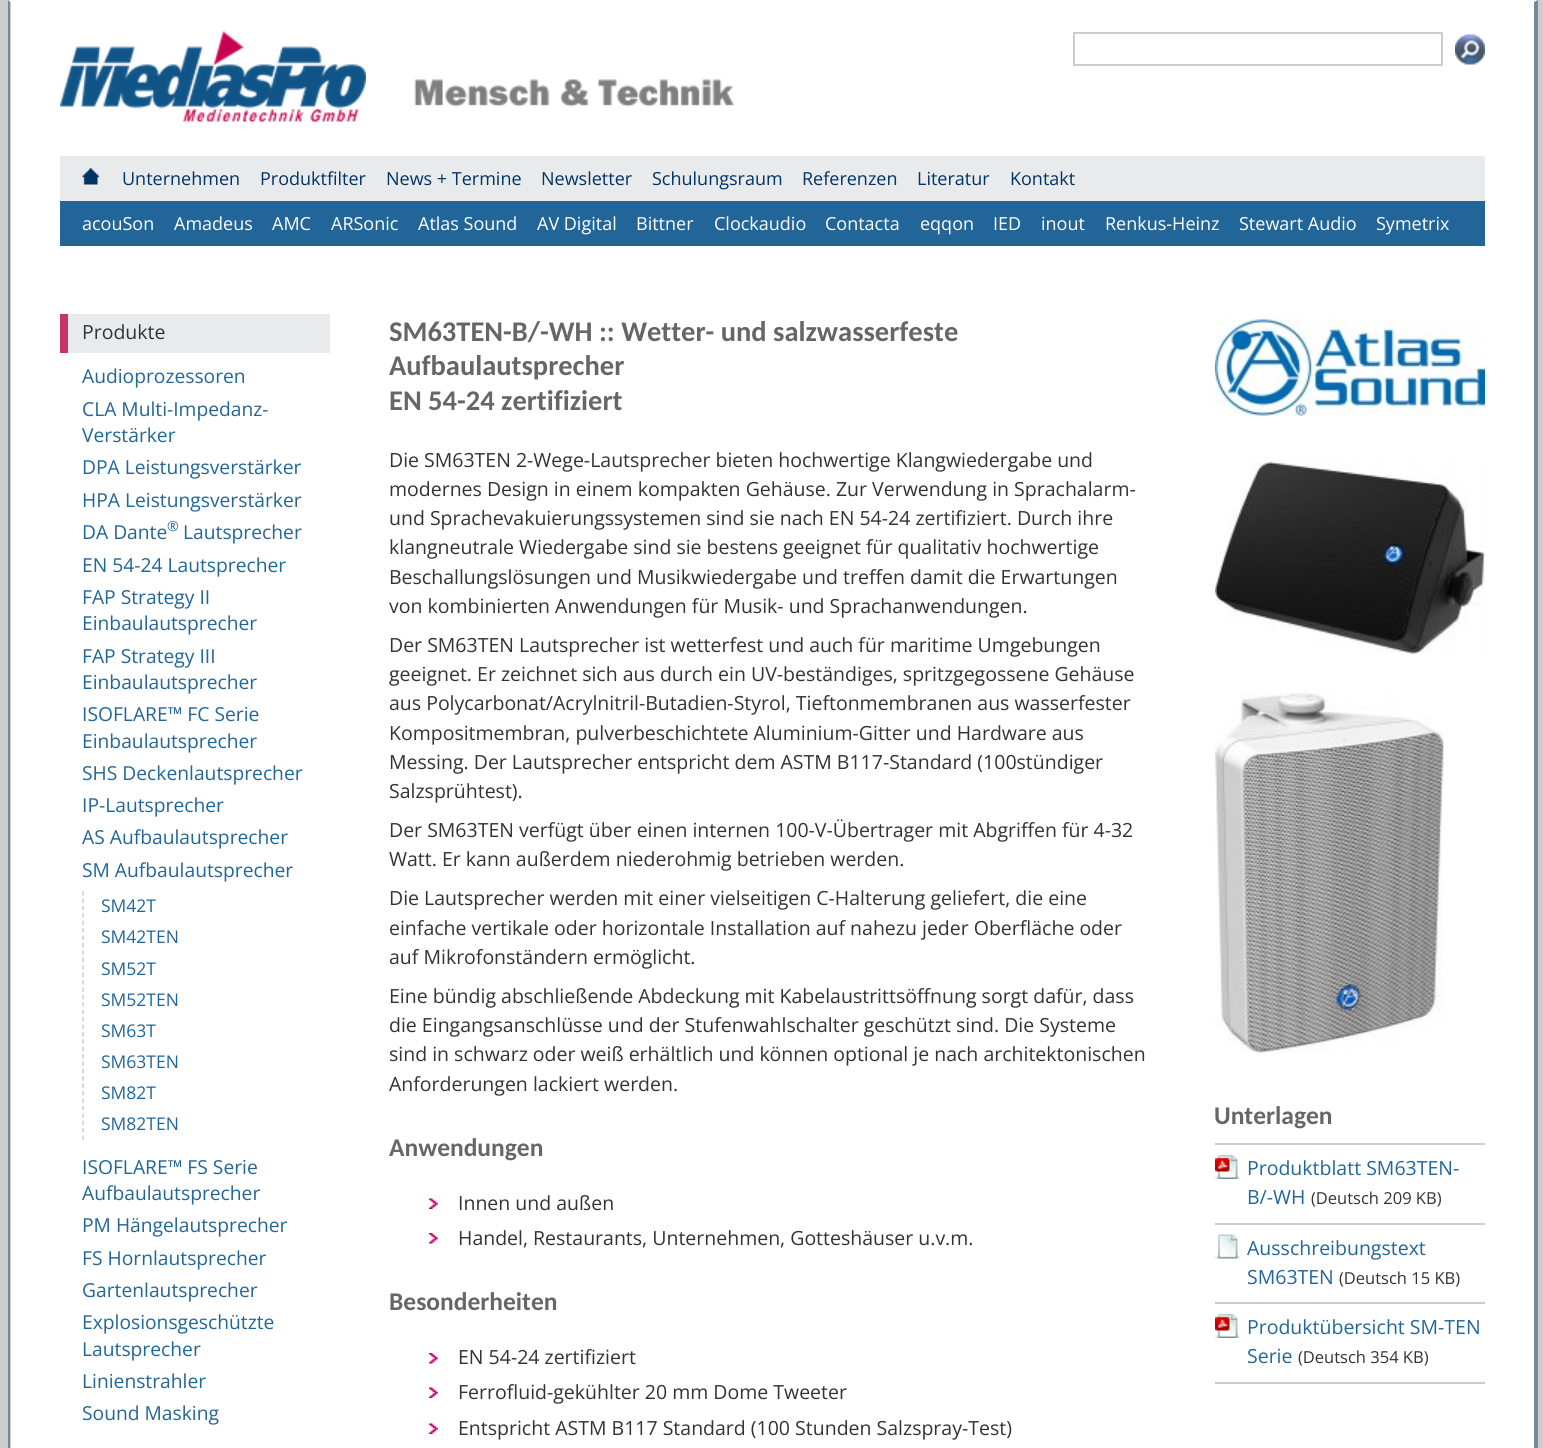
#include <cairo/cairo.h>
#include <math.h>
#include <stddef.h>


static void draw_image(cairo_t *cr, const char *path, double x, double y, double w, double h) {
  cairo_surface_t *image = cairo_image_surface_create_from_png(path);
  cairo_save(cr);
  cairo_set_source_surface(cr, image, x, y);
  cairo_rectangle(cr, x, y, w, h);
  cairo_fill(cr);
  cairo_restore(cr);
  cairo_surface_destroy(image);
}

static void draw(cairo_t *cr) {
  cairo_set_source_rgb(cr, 203 / 255.0, 205 / 255.0, 207 / 255.0);
  cairo_paint(cr);
  cairo_set_source_rgb(cr, 1, 1, 1);
  cairo_rectangle(cr, 11, 2, 1523, 1446);
  cairo_fill(cr);
  cairo_new_path(cr);
  cairo_move_to(cr, 8, 0);
  cairo_line_to(cr, 1538, 0);
  cairo_line_to(cr, 1534, 2);
  cairo_line_to(cr, 10, 2);
  cairo_close_path(cr);
  cairo_fill(cr);
  cairo_set_source_rgb(cr, 119 / 255.0, 136 / 255.0, 153 / 255.0);
  cairo_new_path(cr);
  cairo_move_to(cr, 1538, 0);
  cairo_line_to(cr, 1538, 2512);
  cairo_line_to(cr, 1534, 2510);
  cairo_line_to(cr, 1534, 2);
  cairo_close_path(cr);
  cairo_fill(cr);
  cairo_new_path(cr);
  cairo_move_to(cr, 8, 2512);
  cairo_line_to(cr, 8, 0);
  cairo_line_to(cr, 10, 2);
  cairo_line_to(cr, 10, 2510);
  cairo_close_path(cr);
  cairo_fill(cr);
  draw_image(cr, "images/1.png", 60, 31, 306, 91);
  draw_image(cr, "images/2.png", 414, 79, 320, 28);
  cairo_rectangle(cr, 1074, 33, 368, 32);
  cairo_set_source_rgb(cr, 203 / 255.0, 205 / 255.0, 207 / 255.0);
  cairo_stroke(cr);
  draw_image(cr, "images/3.png", 1455, 34, 30, 31);
  cairo_set_source_rgb(cr, 232 / 255.0, 234 / 255.0, 236 / 255.0);
  cairo_rectangle(cr, 60, 156, 1425, 45);
  cairo_fill(cr);
  draw_image(cr, "images/4.png", 82, 168, 17, 17);
  cairo_set_source_rgb(cr, 34 / 255.0, 102 / 255.0, 153 / 255.0);
  cairo_rectangle(cr, 60, 201, 1425, 45);
  cairo_fill(cr);
  cairo_set_source_rgb(cr, 232 / 255.0, 234 / 255.0, 236 / 255.0);
  cairo_rectangle(cr, 68, 314, 262, 39);
  cairo_fill(cr);
  cairo_set_source_rgb(cr, 204 / 255.0, 51 / 255.0, 102 / 255.0);
  cairo_rectangle(cr, 60, 314, 8, 39);
  cairo_fill(cr);
  cairo_new_path(cr);
  cairo_move_to(cr, 83, 891);
  cairo_line_to(cr, 83, 1140);
  cairo_set_source_rgb(cr, 204 / 255.0, 204 / 255.0, 204 / 255.0);
  cairo_set_line_width(cr, 1.5);
  cairo_set_dash(cr, (double[]){4.5, 2.91}, 2, 0);
  cairo_stroke(cr);
  draw_image(cr, "images/5.png", 429, 1198, 9, 11);
  draw_image(cr, "images/6.png", 429, 1233, 9, 11);
  draw_image(cr, "images/6.png", 429, 1353, 9, 11);
  draw_image(cr, "images/5.png", 429, 1387, 9, 11);
  draw_image(cr, "images/5.png", 429, 1423, 9, 11);
  draw_image(cr, "images/7.png", 1215, 319, 270, 97);
  draw_image(cr, "images/8.png", 1215, 462, 270, 192);
  draw_image(cr, "images/9.png", 1215, 693, 229, 360);
  draw_image(cr, "images/10.png", 1215, 1155, 26, 24);
  cairo_rectangle(cr, 1215, 1143, 270, 2);
  cairo_fill(cr);
  cairo_rectangle(cr, 1215, 1223, 270, 2);
  cairo_fill(cr);
  draw_image(cr, "images/11.png", 1215, 1234, 26, 25);
  cairo_rectangle(cr, 1215, 1302, 270, 2);
  cairo_fill(cr);
  draw_image(cr, "images/10.png", 1215, 1314, 26, 24);
  cairo_rectangle(cr, 1215, 1382, 270, 2);
  cairo_fill(cr);
  cairo_select_font_face(cr, "Open Sans", CAIRO_FONT_SLANT_NORMAL, CAIRO_FONT_WEIGHT_NORMAL);
  cairo_set_font_size(cr, 18);
  cairo_set_source_rgb(cr, 0, 51 / 255.0, 102 / 255.0);
  cairo_move_to(cr, 122, 185);
  cairo_show_text(cr, "Unternehmen");
  cairo_move_to(cr, 260, 185);
  cairo_show_text(cr, "Produktfilter");
  cairo_move_to(cr, 386, 185);
  cairo_show_text(cr, "News + Termine");
  cairo_move_to(cr, 541, 185);
  cairo_show_text(cr, "Newsletter");
  cairo_move_to(cr, 652, 185);
  cairo_show_text(cr, "Schulungsraum");
  cairo_move_to(cr, 802, 185);
  cairo_show_text(cr, "Referenzen");
  cairo_move_to(cr, 917, 185);
  cairo_show_text(cr, "Literatur");
  cairo_move_to(cr, 1010, 185);
  cairo_show_text(cr, "Kontakt");
  cairo_set_source_rgb(cr, 1, 1, 1);
  cairo_move_to(cr, 82, 230);
  cairo_show_text(cr, "acouSon");
  cairo_move_to(cr, 174, 230);
  cairo_show_text(cr, "Amadeus");
  cairo_move_to(cr, 272, 230);
  cairo_show_text(cr, "AMC");
  cairo_move_to(cr, 331, 230);
  cairo_show_text(cr, "ARSonic");
  cairo_move_to(cr, 418, 230);
  cairo_show_text(cr, "Atlas Sound");
  cairo_move_to(cr, 537, 230);
  cairo_show_text(cr, "AV Digital");
  cairo_move_to(cr, 636, 230);
  cairo_show_text(cr, "Bittner");
  cairo_move_to(cr, 714, 230);
  cairo_show_text(cr, "Clockaudio");
  cairo_move_to(cr, 825, 230);
  cairo_show_text(cr, "Contacta");
  cairo_move_to(cr, 920, 230);
  cairo_show_text(cr, "eqqon");
  cairo_move_to(cr, 993, 230);
  cairo_show_text(cr, "IED");
  cairo_move_to(cr, 1041, 230);
  cairo_show_text(cr, "inout");
  cairo_move_to(cr, 1105, 230);
  cairo_show_text(cr, "Renkus-Heinz");
  cairo_move_to(cr, 1239, 230);
  cairo_show_text(cr, "Stewart Audio");
  cairo_move_to(cr, 1376, 230);
  cairo_show_text(cr, "Symetrix");
  cairo_set_font_size(cr, 19.5);
  cairo_set_source_rgb(cr, 51 / 255.0, 51 / 255.0, 51 / 255.0);
  cairo_move_to(cr, 82, 339);
  cairo_show_text(cr, "Produkte");
  cairo_set_font_size(cr, 19.25);
  cairo_set_source_rgb(cr, 34 / 255.0, 102 / 255.0, 153 / 255.0);
  cairo_move_to(cr, 82, 383);
  cairo_show_text(cr, "Audioprozessoren");
  cairo_move_to(cr, 82, 416);
  cairo_show_text(cr, "CLA Multi-Impedanz-");
  cairo_move_to(cr, 82, 442);
  cairo_show_text(cr, "Verstärker");
  cairo_move_to(cr, 82, 474);
  cairo_show_text(cr, "DPA Leistungsverstärker");
  cairo_move_to(cr, 82, 507);
  cairo_show_text(cr, "HPA Leistungsverstärker");
  cairo_move_to(cr, 82, 539);
  cairo_show_text(cr, "DA Dante");
  cairo_set_font_size(cr, 14);
  cairo_move_to(cr, 167, 531);
  cairo_show_text(cr, "®");
  cairo_set_font_size(cr, 19.25);
  cairo_move_to(cr, 183, 539);
  cairo_show_text(cr, "Lautsprecher");
  cairo_move_to(cr, 82, 572);
  cairo_show_text(cr, "EN 54-24 Lautsprecher");
  cairo_move_to(cr, 82, 604);
  cairo_show_text(cr, "FAP Strategy II");
  cairo_move_to(cr, 82, 630);
  cairo_show_text(cr, "Einbaulautsprecher");
  cairo_move_to(cr, 82, 663);
  cairo_show_text(cr, "FAP Strategy III");
  cairo_move_to(cr, 82, 689);
  cairo_show_text(cr, "Einbaulautsprecher");
  cairo_move_to(cr, 82, 721);
  cairo_show_text(cr, "ISOFLARE™ FC Serie");
  cairo_move_to(cr, 82, 748);
  cairo_show_text(cr, "Einbaulautsprecher");
  cairo_move_to(cr, 82, 780);
  cairo_show_text(cr, "SHS Deckenlautsprecher");
  cairo_move_to(cr, 82, 812);
  cairo_show_text(cr, "IP-Lautsprecher");
  cairo_move_to(cr, 82, 844);
  cairo_show_text(cr, "AS Aufbaulautsprecher");
  cairo_move_to(cr, 82, 877);
  cairo_show_text(cr, "SM Aufbaulautsprecher");
  cairo_set_font_size(cr, 17.5);
  cairo_move_to(cr, 101, 912);
  cairo_show_text(cr, "SM42T");
  cairo_move_to(cr, 101, 943);
  cairo_show_text(cr, "SM42TEN");
  cairo_move_to(cr, 101, 975);
  cairo_show_text(cr, "SM52T");
  cairo_move_to(cr, 101, 1006);
  cairo_show_text(cr, "SM52TEN");
  cairo_move_to(cr, 101, 1037);
  cairo_show_text(cr, "SM63T");
  cairo_move_to(cr, 101, 1068);
  cairo_show_text(cr, "SM63TEN");
  cairo_move_to(cr, 101, 1099);
  cairo_show_text(cr, "SM82T");
  cairo_move_to(cr, 101, 1130);
  cairo_show_text(cr, "SM82TEN");
  cairo_set_font_size(cr, 19.25);
  cairo_move_to(cr, 82, 1174);
  cairo_show_text(cr, "ISOFLARE™ FS Serie");
  cairo_move_to(cr, 82, 1200);
  cairo_show_text(cr, "Aufbaulautsprecher");
  cairo_move_to(cr, 82, 1232);
  cairo_show_text(cr, "PM Hängelautsprecher");
  cairo_move_to(cr, 82, 1265);
  cairo_show_text(cr, "FS Hornlautsprecher");
  cairo_move_to(cr, 82, 1297);
  cairo_show_text(cr, "Gartenlautsprecher");
  cairo_move_to(cr, 82, 1329);
  cairo_show_text(cr, "Explosionsgeschützte");
  cairo_move_to(cr, 82, 1356);
  cairo_show_text(cr, "Lautsprecher");
  cairo_move_to(cr, 82, 1388);
  cairo_show_text(cr, "Linienstrahler");
  cairo_move_to(cr, 82, 1420);
  cairo_show_text(cr, "Sound Masking");
  cairo_select_font_face(cr, "Carlito", CAIRO_FONT_SLANT_NORMAL, CAIRO_FONT_WEIGHT_BOLD);
  cairo_set_font_size(cr, 28.5);
  cairo_set_source_rgb(cr, 102 / 255.0, 102 / 255.0, 102 / 255.0);
  cairo_move_to(cr, 389, 341);
  cairo_show_text(cr, "SM63TEN-B/-WH :: Wetter- und salzwasserfeste");
  cairo_move_to(cr, 389, 375);
  cairo_show_text(cr, "Aufbaulautsprecher");
  cairo_move_to(cr, 389, 410);
  cairo_show_text(cr, "EN 54-24 zertifiziert");
  cairo_select_font_face(cr, "Open Sans", CAIRO_FONT_SLANT_NORMAL, CAIRO_FONT_WEIGHT_NORMAL);
  cairo_set_font_size(cr, 19.5);
  cairo_set_source_rgb(cr, 51 / 255.0, 51 / 255.0, 51 / 255.0);
  cairo_move_to(cr, 389, 467);
  cairo_show_text(cr, "Die SM63TEN 2-Wege-Lautsprecher bieten hochwertige Klangwiedergabe und");
  cairo_move_to(cr, 389, 496);
  cairo_show_text(cr, "modernes Design in einem kompakten Gehäuse. Zur Verwendung in Sprachalarm-");
  cairo_move_to(cr, 389, 525);
  cairo_show_text(cr, "und Sprachevakuierungssystemen sind sie nach EN 54-24 zertifiziert. Durch ihre");
  cairo_move_to(cr, 389, 554);
  cairo_show_text(cr, "klangneutrale Wiedergabe sind sie bestens geeignet für qualitativ hochwertige");
  cairo_move_to(cr, 389, 584);
  cairo_show_text(cr, "Beschallungslösungen und Musikwiedergabe und treffen damit die Erwartungen");
  cairo_move_to(cr, 389, 613);
  cairo_show_text(cr, "von kombinierten Anwendungen für Musik- und Sprachanwendungen.");
  cairo_move_to(cr, 389, 652);
  cairo_show_text(cr, "Der SM63TEN Lautsprecher ist wetterfest und auch für maritime Umgebungen");
  cairo_move_to(cr, 389, 681);
  cairo_show_text(cr, "geeignet. Er zeichnet sich aus durch ein UV-beständiges, spritzgegossene Gehäuse");
  cairo_move_to(cr, 389, 710);
  cairo_show_text(cr, "aus Polycarbonat/Acrylnitril-Butadien-Styrol, Tieftonmembranen aus wasserfester");
  cairo_move_to(cr, 389, 740);
  cairo_show_text(cr, "Kompositmembran, pulverbeschichtete Aluminium-Gitter und Hardware aus");
  cairo_move_to(cr, 389, 769);
  cairo_show_text(cr, "Messing. Der Lautsprecher entspricht dem ASTM B117-Standard (100stündiger");
  cairo_move_to(cr, 389, 798);
  cairo_show_text(cr, "Salzsprühtest).");
  cairo_move_to(cr, 389, 837);
  cairo_show_text(cr, "Der SM63TEN verfügt über einen internen 100-V-Übertrager mit Abgriffen für 4-32");
  cairo_move_to(cr, 389, 866);
  cairo_show_text(cr, "Watt. Er kann außerdem niederohmig betrieben werden.");
  cairo_move_to(cr, 389, 905);
  cairo_show_text(cr, "Die Lautsprecher werden mit einer vielseitigen C-Halterung geliefert, die eine");
  cairo_move_to(cr, 389, 935);
  cairo_show_text(cr, "einfache vertikale oder horizontale Installation auf nahezu jeder Oberfläche oder");
  cairo_move_to(cr, 389, 964);
  cairo_show_text(cr, "auf Mikrofonständern ermöglicht.");
  cairo_move_to(cr, 389, 1003);
  cairo_show_text(cr, "Eine bündig abschließende Abdeckung mit Kabelaustrittsöffnung sorgt dafür, dass");
  cairo_move_to(cr, 389, 1032);
  cairo_show_text(cr, "die Eingangsanschlüsse und der Stufenwahlschalter geschützt sind. Die Systeme");
  cairo_move_to(cr, 389, 1061);
  cairo_show_text(cr, "sind in schwarz oder weiß erhältlich und können optional je nach architektonischen");
  cairo_move_to(cr, 389, 1091);
  cairo_show_text(cr, "Anforderungen lackiert werden.");
  cairo_select_font_face(cr, "Carlito", CAIRO_FONT_SLANT_NORMAL, CAIRO_FONT_WEIGHT_BOLD);
  cairo_set_font_size(cr, 25.5);
  cairo_set_source_rgb(cr, 102 / 255.0, 102 / 255.0, 102 / 255.0);
  cairo_move_to(cr, 389, 1156);
  cairo_show_text(cr, "Anwendungen");
  cairo_select_font_face(cr, "Open Sans", CAIRO_FONT_SLANT_NORMAL, CAIRO_FONT_WEIGHT_NORMAL);
  cairo_set_font_size(cr, 19.5);
  cairo_set_source_rgb(cr, 51 / 255.0, 51 / 255.0, 51 / 255.0);
  cairo_move_to(cr, 458, 1210);
  cairo_show_text(cr, "Innen und außen");
  cairo_move_to(cr, 458, 1245);
  cairo_show_text(cr, "Handel, Restaurants, Unternehmen, Gotteshäuser u.v.m.");
  cairo_select_font_face(cr, "Carlito", CAIRO_FONT_SLANT_NORMAL, CAIRO_FONT_WEIGHT_BOLD);
  cairo_set_font_size(cr, 25.5);
  cairo_set_source_rgb(cr, 102 / 255.0, 102 / 255.0, 102 / 255.0);
  cairo_move_to(cr, 389, 1310);
  cairo_show_text(cr, "Besonderheiten");
  cairo_select_font_face(cr, "Open Sans", CAIRO_FONT_SLANT_NORMAL, CAIRO_FONT_WEIGHT_NORMAL);
  cairo_set_font_size(cr, 19.5);
  cairo_set_source_rgb(cr, 51 / 255.0, 51 / 255.0, 51 / 255.0);
  cairo_move_to(cr, 458, 1364);
  cairo_show_text(cr, "EN 54-24 zertifiziert");
  cairo_move_to(cr, 458, 1399);
  cairo_show_text(cr, "Ferrofluid-gekühlter 20 mm Dome Tweeter");
  cairo_move_to(cr, 458, 1435);
  cairo_show_text(cr, "Entspricht ASTM B117 Standard (100 Stunden Salzspray-Test)");
  cairo_select_font_face(cr, "Carlito", CAIRO_FONT_SLANT_NORMAL, CAIRO_FONT_WEIGHT_BOLD);
  cairo_set_font_size(cr, 25.5);
  cairo_set_source_rgb(cr, 102 / 255.0, 102 / 255.0, 102 / 255.0);
  cairo_move_to(cr, 1214, 1124);
  cairo_show_text(cr, "Unterlagen");
  cairo_select_font_face(cr, "Open Sans", CAIRO_FONT_SLANT_NORMAL, CAIRO_FONT_WEIGHT_NORMAL);
  cairo_set_font_size(cr, 19.5);
  cairo_set_source_rgb(cr, 34 / 255.0, 102 / 255.0, 153 / 255.0);
  cairo_move_to(cr, 1247, 1175);
  cairo_show_text(cr, "Produktblatt SM63TEN-");
  cairo_move_to(cr, 1247, 1204);
  cairo_show_text(cr, "B/-WH");
  cairo_set_font_size(cr, 16.5);
  cairo_set_source_rgb(cr, 51 / 255.0, 51 / 255.0, 51 / 255.0);
  cairo_move_to(cr, 1311, 1204);
  cairo_show_text(cr, "(Deutsch 209 KB)");
  cairo_set_font_size(cr, 19.5);
  cairo_set_source_rgb(cr, 34 / 255.0, 102 / 255.0, 153 / 255.0);
  cairo_move_to(cr, 1247, 1255);
  cairo_show_text(cr, "Ausschreibungstext");
  cairo_move_to(cr, 1247, 1284);
  cairo_show_text(cr, "SM63TEN");
  cairo_set_font_size(cr, 16.5);
  cairo_set_source_rgb(cr, 51 / 255.0, 51 / 255.0, 51 / 255.0);
  cairo_move_to(cr, 1339, 1284);
  cairo_show_text(cr, "(Deutsch 15 KB)");
  cairo_set_font_size(cr, 19.5);
  cairo_set_source_rgb(cr, 34 / 255.0, 102 / 255.0, 153 / 255.0);
  cairo_move_to(cr, 1247, 1334);
  cairo_show_text(cr, "Produktübersicht SM-TEN");
  cairo_move_to(cr, 1247, 1363);
  cairo_show_text(cr, "Serie");
  cairo_set_font_size(cr, 16.5);
  cairo_set_source_rgb(cr, 51 / 255.0, 51 / 255.0, 51 / 255.0);
  cairo_move_to(cr, 1298, 1363);
  cairo_show_text(cr, "(Deutsch 354 KB)");
}

int main(void) {
  cairo_surface_t *surface = cairo_image_surface_create(CAIRO_FORMAT_RGB24, 1543, 1448);
  cairo_t *cr = cairo_create(surface);
  cairo_font_options_t *options = cairo_font_options_create();
  cairo_font_options_set_hint_metrics(options, CAIRO_HINT_METRICS_OFF);
  cairo_font_options_set_hint_style(options, CAIRO_HINT_STYLE_NONE);
  cairo_set_font_options(cr, options);
  cairo_set_miter_limit(cr, 4);
  draw(cr);
  cairo_surface_write_to_png(surface, "out.png");
  cairo_font_options_destroy(options);
  cairo_destroy(cr);
  cairo_surface_destroy(surface);
  return 0;
}
